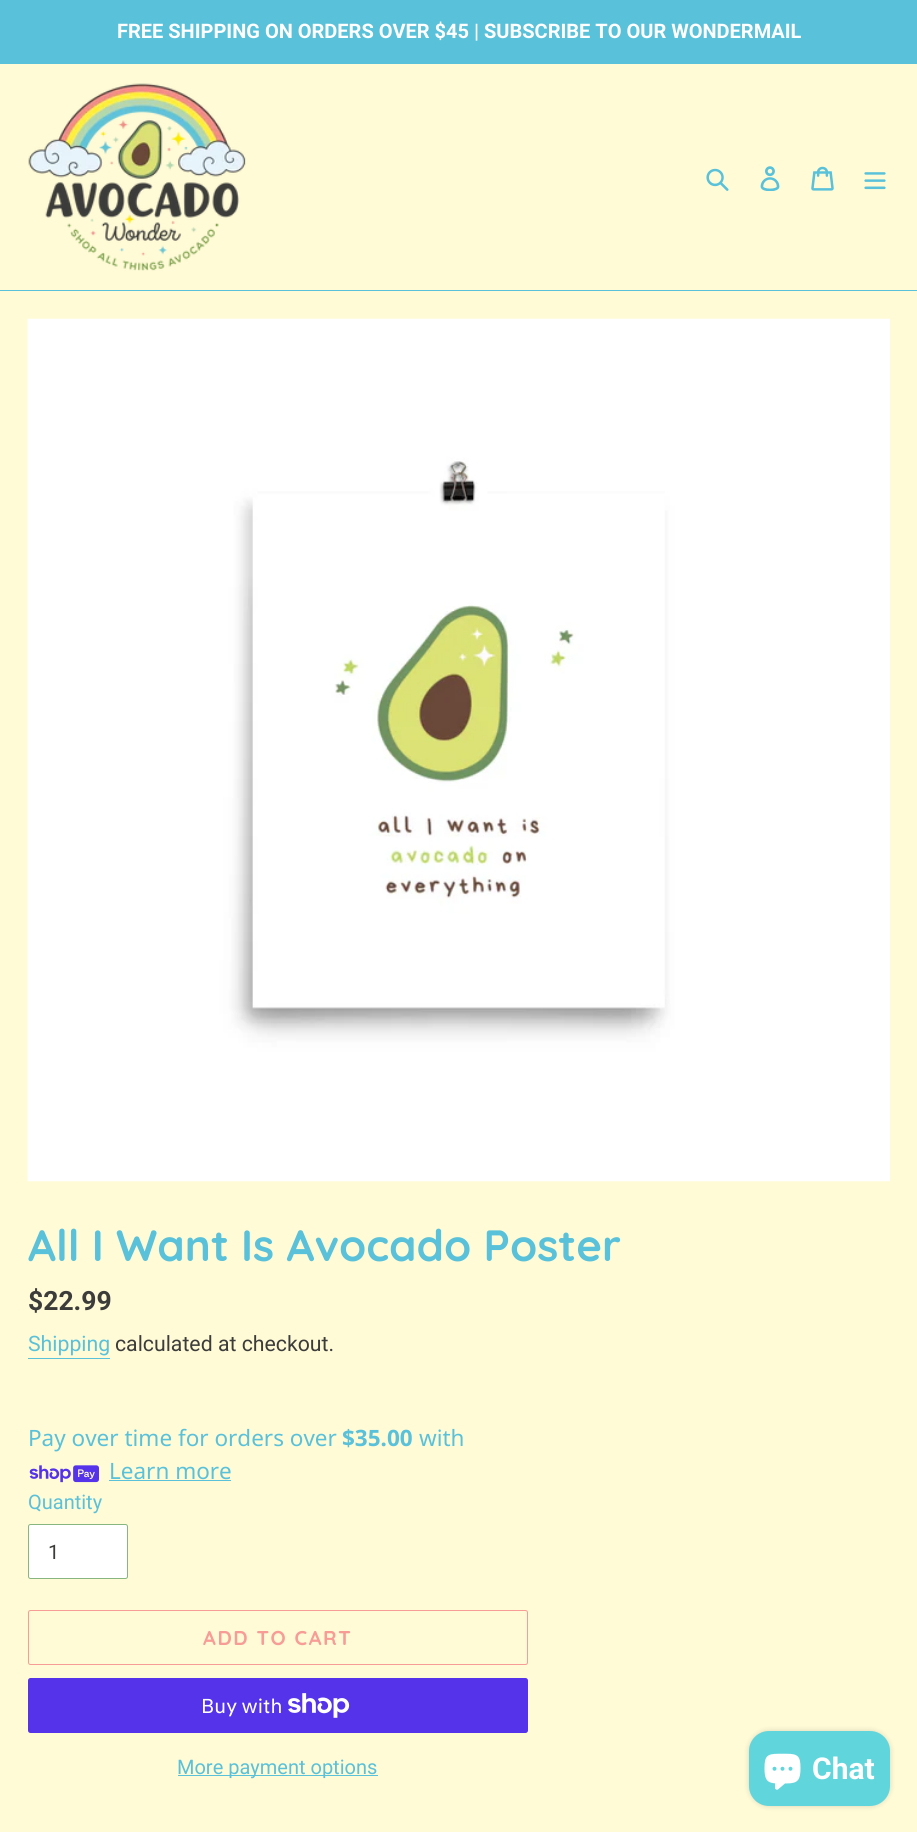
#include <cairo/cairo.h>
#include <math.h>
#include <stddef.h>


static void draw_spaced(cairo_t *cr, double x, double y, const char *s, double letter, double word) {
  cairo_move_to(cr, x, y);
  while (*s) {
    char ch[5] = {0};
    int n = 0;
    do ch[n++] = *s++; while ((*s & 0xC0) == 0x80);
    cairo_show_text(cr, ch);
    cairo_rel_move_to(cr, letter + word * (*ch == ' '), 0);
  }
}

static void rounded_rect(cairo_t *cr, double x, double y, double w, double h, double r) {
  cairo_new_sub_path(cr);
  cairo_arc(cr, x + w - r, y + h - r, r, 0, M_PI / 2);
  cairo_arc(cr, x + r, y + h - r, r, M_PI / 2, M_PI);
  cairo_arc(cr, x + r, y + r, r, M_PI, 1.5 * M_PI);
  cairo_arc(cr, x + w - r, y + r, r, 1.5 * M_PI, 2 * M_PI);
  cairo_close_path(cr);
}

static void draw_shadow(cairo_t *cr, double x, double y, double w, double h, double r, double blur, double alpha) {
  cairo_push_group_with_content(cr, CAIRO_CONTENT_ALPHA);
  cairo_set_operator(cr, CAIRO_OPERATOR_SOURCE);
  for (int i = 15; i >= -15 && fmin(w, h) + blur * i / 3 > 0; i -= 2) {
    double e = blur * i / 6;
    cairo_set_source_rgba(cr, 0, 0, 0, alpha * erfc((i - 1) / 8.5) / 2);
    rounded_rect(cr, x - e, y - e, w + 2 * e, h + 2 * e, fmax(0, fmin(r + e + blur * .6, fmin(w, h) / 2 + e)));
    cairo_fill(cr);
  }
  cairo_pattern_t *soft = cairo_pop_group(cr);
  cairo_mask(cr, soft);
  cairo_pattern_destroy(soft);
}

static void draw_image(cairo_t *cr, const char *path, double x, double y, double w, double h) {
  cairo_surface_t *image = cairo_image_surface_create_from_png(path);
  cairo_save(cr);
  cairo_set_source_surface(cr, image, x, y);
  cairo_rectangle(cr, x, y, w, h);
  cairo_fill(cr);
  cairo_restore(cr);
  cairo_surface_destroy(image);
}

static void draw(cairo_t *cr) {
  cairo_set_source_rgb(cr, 1, 251 / 255.0, 215 / 255.0);
  cairo_paint(cr);
  cairo_set_source_rgb(cr, 89 / 255.0, 193 / 255.0, 217 / 255.0);
  cairo_rectangle(cr, 0, 0, 917, 64);
  cairo_fill(cr);
  cairo_rectangle(cr, 0, 290, 917, 1);
  cairo_fill(cr);
  draw_image(cr, "images/1.png", 28, 83, 218, 188);
  draw_image(cr, "images/2.png", 706, 168, 23, 23);
  draw_image(cr, "images/3.png", 760, 166, 20, 25);
  draw_image(cr, "images/4.png", 811, 166, 23, 25);
  draw_image(cr, "images/5.png", 864, 172, 22, 18);
  draw_image(cr, "images/6.png", 27, 318, 863, 864);
  cairo_rectangle(cr, 28, 1358, 82, 1);
  cairo_fill(cr);
  draw_image(cr, "images/7.png", 29, 1465, 70, 18);
  cairo_rectangle(cr, 109, 1480, 122, 1);
  cairo_fill(cr);
  cairo_set_source_rgb(cr, 1, 1, 1);
  rounded_rect(cr, 28.5, 1524.5, 99, 54, 2);
  cairo_fill_preserve(cr);
  cairo_set_source_rgb(cr, 135 / 255.0, 182 / 255.0, 127 / 255.0);
  cairo_set_line_width(cr, 1);
  cairo_stroke(cr);
  rounded_rect(cr, 28.5, 1610.5, 499, 54, 2);
  cairo_set_source_rgb(cr, 247 / 255.0, 156 / 255.0, 150 / 255.0);
  cairo_stroke(cr);
  cairo_set_source_rgb(cr, 84 / 255.0, 51 / 255.0, 235 / 255.0);
  rounded_rect(cr, 28, 1678, 500, 55, 2.5);
  cairo_fill(cr);
  draw_image(cr, "images/8.png", 288, 1693, 62, 25);
  cairo_set_source_rgb(cr, 89 / 255.0, 193 / 255.0, 217 / 255.0);
  cairo_rectangle(cr, 178, 1775, 200, 1);
  cairo_fill(cr);
  cairo_set_source_rgb(cr, 0, 0, 0);
  draw_shadow(cr, 749, 1731, 141, 75, 20, 3, 0.15);
  cairo_set_source_rgb(cr, 96 / 255.0, 214 / 255.0, 220 / 255.0);
  rounded_rect(cr, 749, 1731, 141, 75, 20);
  cairo_fill(cr);
  draw_image(cr, "images/9.png", 764, 1753, 37, 37);
  cairo_select_font_face(cr, "Roboto", CAIRO_FONT_SLANT_NORMAL, CAIRO_FONT_WEIGHT_BOLD);
  cairo_set_font_size(cr, 20);
  cairo_set_source_rgb(cr, 1, 1, 1);
  cairo_move_to(cr, 117, 38);
  cairo_show_text(cr, "FREE SHIPPING ON ORDERS OVER $45 | SUBSCRIBE TO OUR WONDERMAIL");
  cairo_select_font_face(cr, "Quicksand", CAIRO_FONT_SLANT_NORMAL, CAIRO_FONT_WEIGHT_BOLD);
  cairo_set_font_size(cr, 43.75);
  cairo_set_source_rgb(cr, 89 / 255.0, 193 / 255.0, 217 / 255.0);
  cairo_move_to(cr, 28, 1261);
  cairo_show_text(cr, "All I Want Is Avocado Poster");
  cairo_select_font_face(cr, "Roboto", CAIRO_FONT_SLANT_NORMAL, CAIRO_FONT_WEIGHT_BOLD);
  cairo_set_font_size(cr, 26.5);
  cairo_set_source_rgb(cr, 60 / 255.0, 60 / 255.0, 59 / 255.0);
  cairo_move_to(cr, 28, 1310);
  cairo_show_text(cr, "$22.99");
  cairo_select_font_face(cr, "Roboto", CAIRO_FONT_SLANT_NORMAL, CAIRO_FONT_WEIGHT_NORMAL);
  cairo_set_font_size(cr, 21.25);
  cairo_set_source_rgb(cr, 89 / 255.0, 193 / 255.0, 217 / 255.0);
  cairo_move_to(cr, 28, 1351);
  cairo_show_text(cr, "Shipping");
  cairo_set_source_rgb(cr, 60 / 255.0, 60 / 255.0, 59 / 255.0);
  cairo_move_to(cr, 115, 1351);
  cairo_show_text(cr, "calculated at checkout.");
  cairo_select_font_face(cr, "Noto Sans", CAIRO_FONT_SLANT_NORMAL, CAIRO_FONT_WEIGHT_NORMAL);
  cairo_set_font_size(cr, 22.5);
  cairo_set_source_rgb(cr, 89 / 255.0, 193 / 255.0, 217 / 255.0);
  cairo_move_to(cr, 28, 1446);
  cairo_show_text(cr, "Pay over time for orders over");
  cairo_select_font_face(cr, "Noto Sans", CAIRO_FONT_SLANT_NORMAL, CAIRO_FONT_WEIGHT_BOLD);
  cairo_move_to(cr, 342, 1446);
  cairo_show_text(cr, "$35.00");
  cairo_select_font_face(cr, "Noto Sans", CAIRO_FONT_SLANT_NORMAL, CAIRO_FONT_WEIGHT_NORMAL);
  cairo_move_to(cr, 419, 1446);
  cairo_show_text(cr, "with");
  cairo_move_to(cr, 109, 1479);
  cairo_show_text(cr, "Learn more");
  cairo_select_font_face(cr, "Roboto", CAIRO_FONT_SLANT_NORMAL, CAIRO_FONT_WEIGHT_NORMAL);
  cairo_set_font_size(cr, 20);
  cairo_move_to(cr, 28, 1509);
  cairo_show_text(cr, "Quantity");
  cairo_set_source_rgb(cr, 60 / 255.0, 60 / 255.0, 59 / 255.0);
  cairo_move_to(cr, 48, 1559);
  cairo_show_text(cr, "1");
  cairo_select_font_face(cr, "Quicksand", CAIRO_FONT_SLANT_NORMAL, CAIRO_FONT_WEIGHT_BOLD);
  cairo_set_source_rgb(cr, 247 / 255.0, 156 / 255.0, 150 / 255.0);
  draw_spaced(cr, 203, 1645, "ADD TO CART", 1.6, 0);
  cairo_select_font_face(cr, "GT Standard", CAIRO_FONT_SLANT_NORMAL, CAIRO_FONT_WEIGHT_NORMAL);
  cairo_set_source_rgb(cr, 1, 1, 1);
  cairo_move_to(cr, 201, 1713);
  cairo_show_text(cr, "Buy with");
  cairo_select_font_face(cr, "Roboto", CAIRO_FONT_SLANT_NORMAL, CAIRO_FONT_WEIGHT_NORMAL);
  cairo_set_source_rgb(cr, 89 / 255.0, 193 / 255.0, 217 / 255.0);
  cairo_move_to(cr, 177, 1774);
  cairo_show_text(cr, "More payment options");
  cairo_select_font_face(cr, "Roboto", CAIRO_FONT_SLANT_NORMAL, CAIRO_FONT_WEIGHT_BOLD);
  cairo_set_font_size(cr, 30);
  cairo_set_source_rgb(cr, 1, 1, 1);
  cairo_move_to(cr, 812, 1779);
  cairo_show_text(cr, "Chat");
}

int main(void) {
  cairo_surface_t *surface = cairo_image_surface_create(CAIRO_FORMAT_RGB24, 917, 1832);
  cairo_t *cr = cairo_create(surface);
  cairo_font_options_t *options = cairo_font_options_create();
  cairo_font_options_set_hint_metrics(options, CAIRO_HINT_METRICS_OFF);
  cairo_font_options_set_hint_style(options, CAIRO_HINT_STYLE_NONE);
  cairo_set_font_options(cr, options);
  cairo_set_miter_limit(cr, 4);
  draw(cr);
  cairo_surface_write_to_png(surface, "out.png");
  cairo_font_options_destroy(options);
  cairo_destroy(cr);
  cairo_surface_destroy(surface);
  return 0;
}
